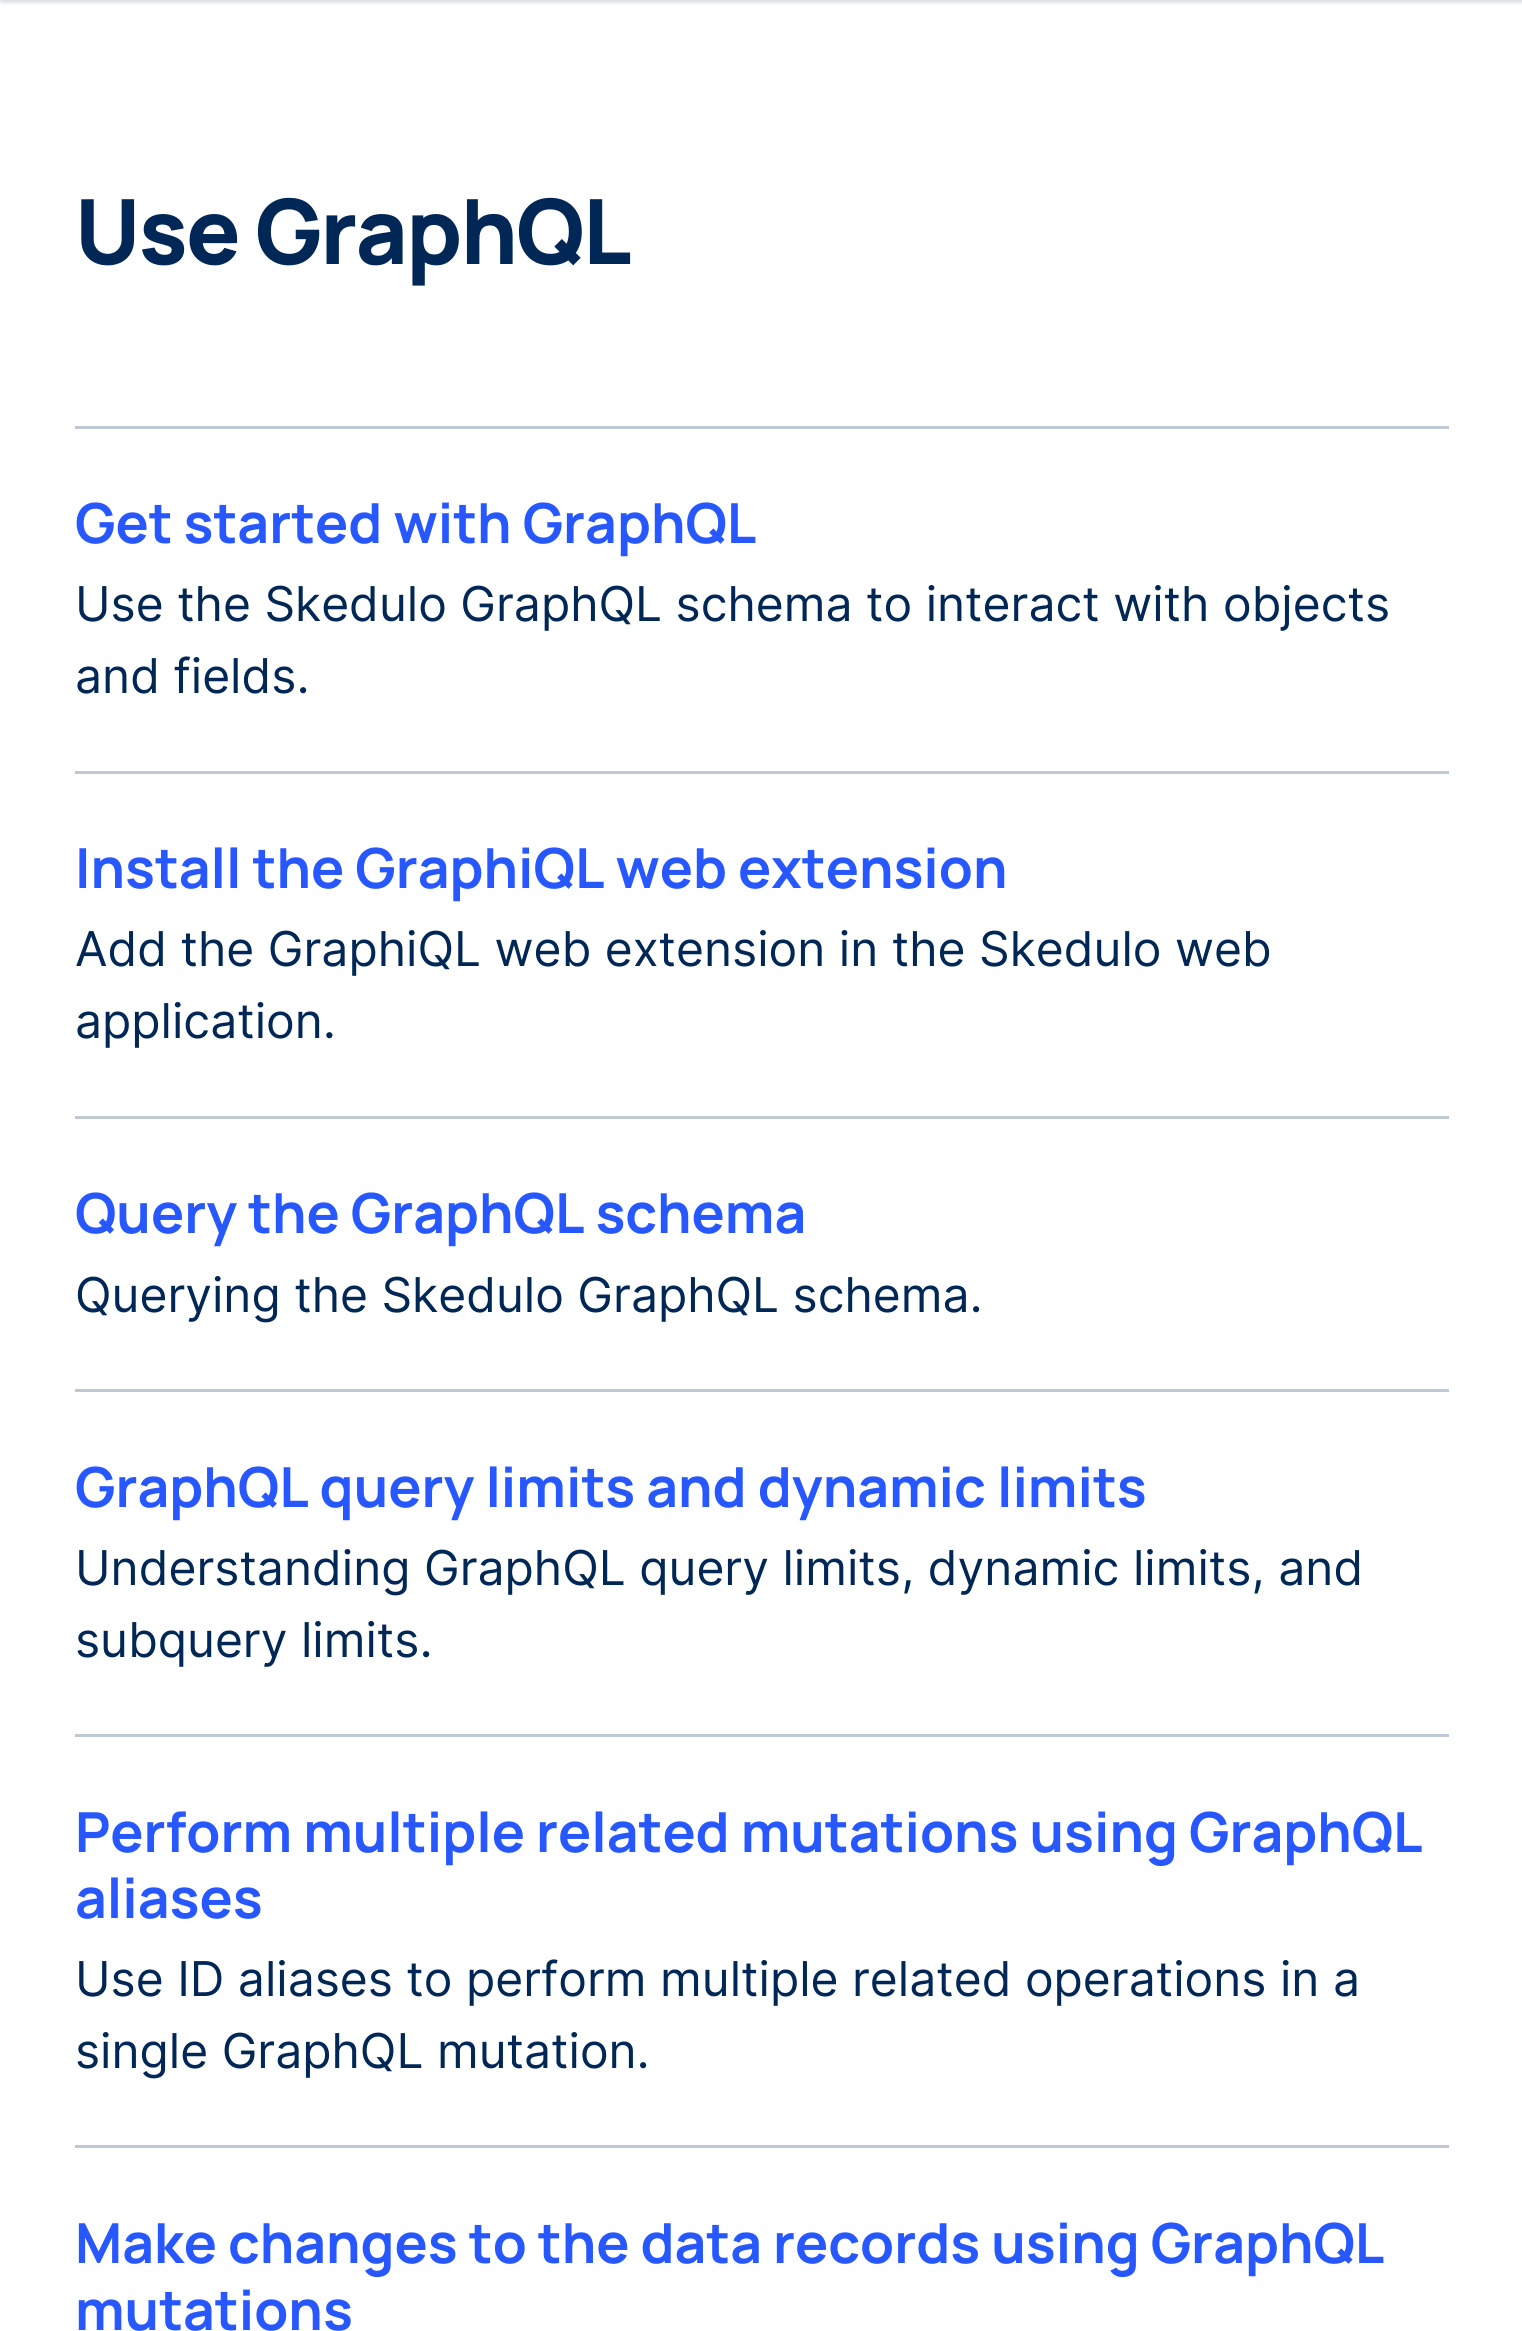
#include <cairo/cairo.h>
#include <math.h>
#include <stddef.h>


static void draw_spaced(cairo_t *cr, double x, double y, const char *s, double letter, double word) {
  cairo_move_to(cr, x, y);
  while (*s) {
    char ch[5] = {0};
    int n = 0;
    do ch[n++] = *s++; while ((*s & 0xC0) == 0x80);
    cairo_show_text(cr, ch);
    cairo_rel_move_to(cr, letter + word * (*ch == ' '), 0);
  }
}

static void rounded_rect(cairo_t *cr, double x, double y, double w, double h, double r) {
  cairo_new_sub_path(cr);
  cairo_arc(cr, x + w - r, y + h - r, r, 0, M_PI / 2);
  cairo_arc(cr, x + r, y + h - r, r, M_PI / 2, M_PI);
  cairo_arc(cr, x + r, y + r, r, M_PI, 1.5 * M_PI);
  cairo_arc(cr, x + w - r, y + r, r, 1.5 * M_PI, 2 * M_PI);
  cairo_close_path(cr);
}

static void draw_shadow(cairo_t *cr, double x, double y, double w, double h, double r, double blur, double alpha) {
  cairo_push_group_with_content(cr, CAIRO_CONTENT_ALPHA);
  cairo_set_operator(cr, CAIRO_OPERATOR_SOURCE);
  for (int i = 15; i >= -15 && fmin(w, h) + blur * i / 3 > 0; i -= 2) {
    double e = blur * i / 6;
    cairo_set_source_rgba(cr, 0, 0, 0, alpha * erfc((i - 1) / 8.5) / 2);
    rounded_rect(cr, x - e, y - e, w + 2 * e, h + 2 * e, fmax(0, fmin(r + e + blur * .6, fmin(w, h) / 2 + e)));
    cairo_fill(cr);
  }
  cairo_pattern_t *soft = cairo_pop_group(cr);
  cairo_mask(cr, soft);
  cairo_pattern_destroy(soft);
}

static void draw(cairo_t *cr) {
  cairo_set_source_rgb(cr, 1, 1, 1);
  cairo_paint(cr);
  cairo_set_source_rgb(cr, 94 / 255.0, 101 / 255.0, 132 / 255.0);
  draw_shadow(cr, 0, -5, 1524, 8, 0, 1.5, 0.2);
  cairo_set_source_rgb(cr, 191 / 255.0, 201 / 255.0, 213 / 255.0);
  cairo_rectangle(cr, 75, 426, 1374, 3);
  cairo_fill(cr);
  cairo_rectangle(cr, 75, 771, 1374, 3);
  cairo_fill(cr);
  cairo_rectangle(cr, 75, 1116, 1374, 3);
  cairo_fill(cr);
  cairo_rectangle(cr, 75, 1389, 1374, 3);
  cairo_fill(cr);
  cairo_rectangle(cr, 75, 1734, 1374, 3);
  cairo_fill(cr);
  cairo_rectangle(cr, 75, 2145, 1374, 3);
  cairo_fill(cr);
  cairo_select_font_face(cr, "Manrope ExtraBold", CAIRO_FONT_SLANT_NORMAL, CAIRO_FONT_WEIGHT_NORMAL);
  cairo_set_font_size(cr, 90);
  cairo_set_source_rgb(cr, 0, 39 / 255.0, 85 / 255.0);
  draw_spaced(cr, 75, 264, "Use GraphQL", -1.75, 0);
  cairo_select_font_face(cr, "Manrope", CAIRO_FONT_SLANT_NORMAL, CAIRO_FONT_WEIGHT_BOLD);
  cairo_set_font_size(cr, 55.2);
  cairo_set_source_rgb(cr, 39 / 255.0, 87 / 255.0, 254 / 255.0);
  cairo_move_to(cr, 75, 543);
  cairo_show_text(cr, "Get started with GraphQL");
  cairo_select_font_face(cr, "Inter", CAIRO_FONT_SLANT_NORMAL, CAIRO_FONT_WEIGHT_NORMAL);
  cairo_set_font_size(cr, 48);
  cairo_set_source_rgb(cr, 0, 39 / 255.0, 85 / 255.0);
  cairo_move_to(cr, 75, 621);
  cairo_show_text(cr, "Use the Skedulo GraphQL schema to interact with objects");
  cairo_move_to(cr, 75, 693);
  cairo_show_text(cr, "and fields.");
  cairo_select_font_face(cr, "Manrope", CAIRO_FONT_SLANT_NORMAL, CAIRO_FONT_WEIGHT_BOLD);
  cairo_set_font_size(cr, 55.2);
  cairo_set_source_rgb(cr, 39 / 255.0, 87 / 255.0, 254 / 255.0);
  cairo_move_to(cr, 75, 888);
  cairo_show_text(cr, "Install the GraphiQL web extension");
  cairo_select_font_face(cr, "Inter", CAIRO_FONT_SLANT_NORMAL, CAIRO_FONT_WEIGHT_NORMAL);
  cairo_set_font_size(cr, 48);
  cairo_set_source_rgb(cr, 0, 39 / 255.0, 85 / 255.0);
  cairo_move_to(cr, 75, 966);
  cairo_show_text(cr, "Add the GraphiQL web extension in the Skedulo web");
  cairo_move_to(cr, 75, 1038);
  cairo_show_text(cr, "application.");
  cairo_select_font_face(cr, "Manrope", CAIRO_FONT_SLANT_NORMAL, CAIRO_FONT_WEIGHT_BOLD);
  cairo_set_font_size(cr, 55.2);
  cairo_set_source_rgb(cr, 39 / 255.0, 87 / 255.0, 254 / 255.0);
  cairo_move_to(cr, 75, 1233);
  cairo_show_text(cr, "Query the GraphQL schema");
  cairo_select_font_face(cr, "Inter", CAIRO_FONT_SLANT_NORMAL, CAIRO_FONT_WEIGHT_NORMAL);
  cairo_set_font_size(cr, 48);
  cairo_set_source_rgb(cr, 0, 39 / 255.0, 85 / 255.0);
  cairo_move_to(cr, 75, 1312);
  cairo_show_text(cr, "Querying the Skedulo GraphQL schema.");
  cairo_select_font_face(cr, "Manrope", CAIRO_FONT_SLANT_NORMAL, CAIRO_FONT_WEIGHT_BOLD);
  cairo_set_font_size(cr, 55.2);
  cairo_set_source_rgb(cr, 39 / 255.0, 87 / 255.0, 254 / 255.0);
  cairo_move_to(cr, 75, 1507);
  cairo_show_text(cr, "GraphQL query limits and dynamic limits");
  cairo_select_font_face(cr, "Inter", CAIRO_FONT_SLANT_NORMAL, CAIRO_FONT_WEIGHT_NORMAL);
  cairo_set_font_size(cr, 48);
  cairo_set_source_rgb(cr, 0, 39 / 255.0, 85 / 255.0);
  cairo_move_to(cr, 75, 1585);
  cairo_show_text(cr, "Understanding GraphQL query limits, dynamic limits, and");
  cairo_move_to(cr, 75, 1657);
  cairo_show_text(cr, "subquery limits.");
  cairo_select_font_face(cr, "Manrope", CAIRO_FONT_SLANT_NORMAL, CAIRO_FONT_WEIGHT_BOLD);
  cairo_set_font_size(cr, 55.2);
  cairo_set_source_rgb(cr, 39 / 255.0, 87 / 255.0, 254 / 255.0);
  cairo_move_to(cr, 75, 1852);
  cairo_show_text(cr, "Perform multiple related mutations using GraphQL");
  cairo_move_to(cr, 75, 1918);
  cairo_show_text(cr, "aliases");
  cairo_select_font_face(cr, "Inter", CAIRO_FONT_SLANT_NORMAL, CAIRO_FONT_WEIGHT_NORMAL);
  cairo_set_font_size(cr, 48);
  cairo_set_source_rgb(cr, 0, 39 / 255.0, 85 / 255.0);
  cairo_move_to(cr, 75, 1996);
  cairo_show_text(cr, "Use ID aliases to perform multiple related operations in a");
  cairo_move_to(cr, 75, 2068);
  cairo_show_text(cr, "single GraphQL mutation.");
  cairo_select_font_face(cr, "Manrope", CAIRO_FONT_SLANT_NORMAL, CAIRO_FONT_WEIGHT_BOLD);
  cairo_set_font_size(cr, 55.2);
  cairo_set_source_rgb(cr, 39 / 255.0, 87 / 255.0, 254 / 255.0);
  cairo_move_to(cr, 75, 2263);
  cairo_show_text(cr, "Make changes to the data records using GraphQL");
  cairo_move_to(cr, 75, 2330);
  cairo_show_text(cr, "mutations");
}

int main(void) {
  cairo_surface_t *surface = cairo_image_surface_create(CAIRO_FORMAT_RGB24, 1522, 2331);
  cairo_t *cr = cairo_create(surface);
  cairo_font_options_t *options = cairo_font_options_create();
  cairo_font_options_set_hint_metrics(options, CAIRO_HINT_METRICS_OFF);
  cairo_font_options_set_hint_style(options, CAIRO_HINT_STYLE_NONE);
  cairo_set_font_options(cr, options);
  cairo_set_miter_limit(cr, 4);
  draw(cr);
  cairo_surface_write_to_png(surface, "out.png");
  cairo_font_options_destroy(options);
  cairo_destroy(cr);
  cairo_surface_destroy(surface);
  return 0;
}
